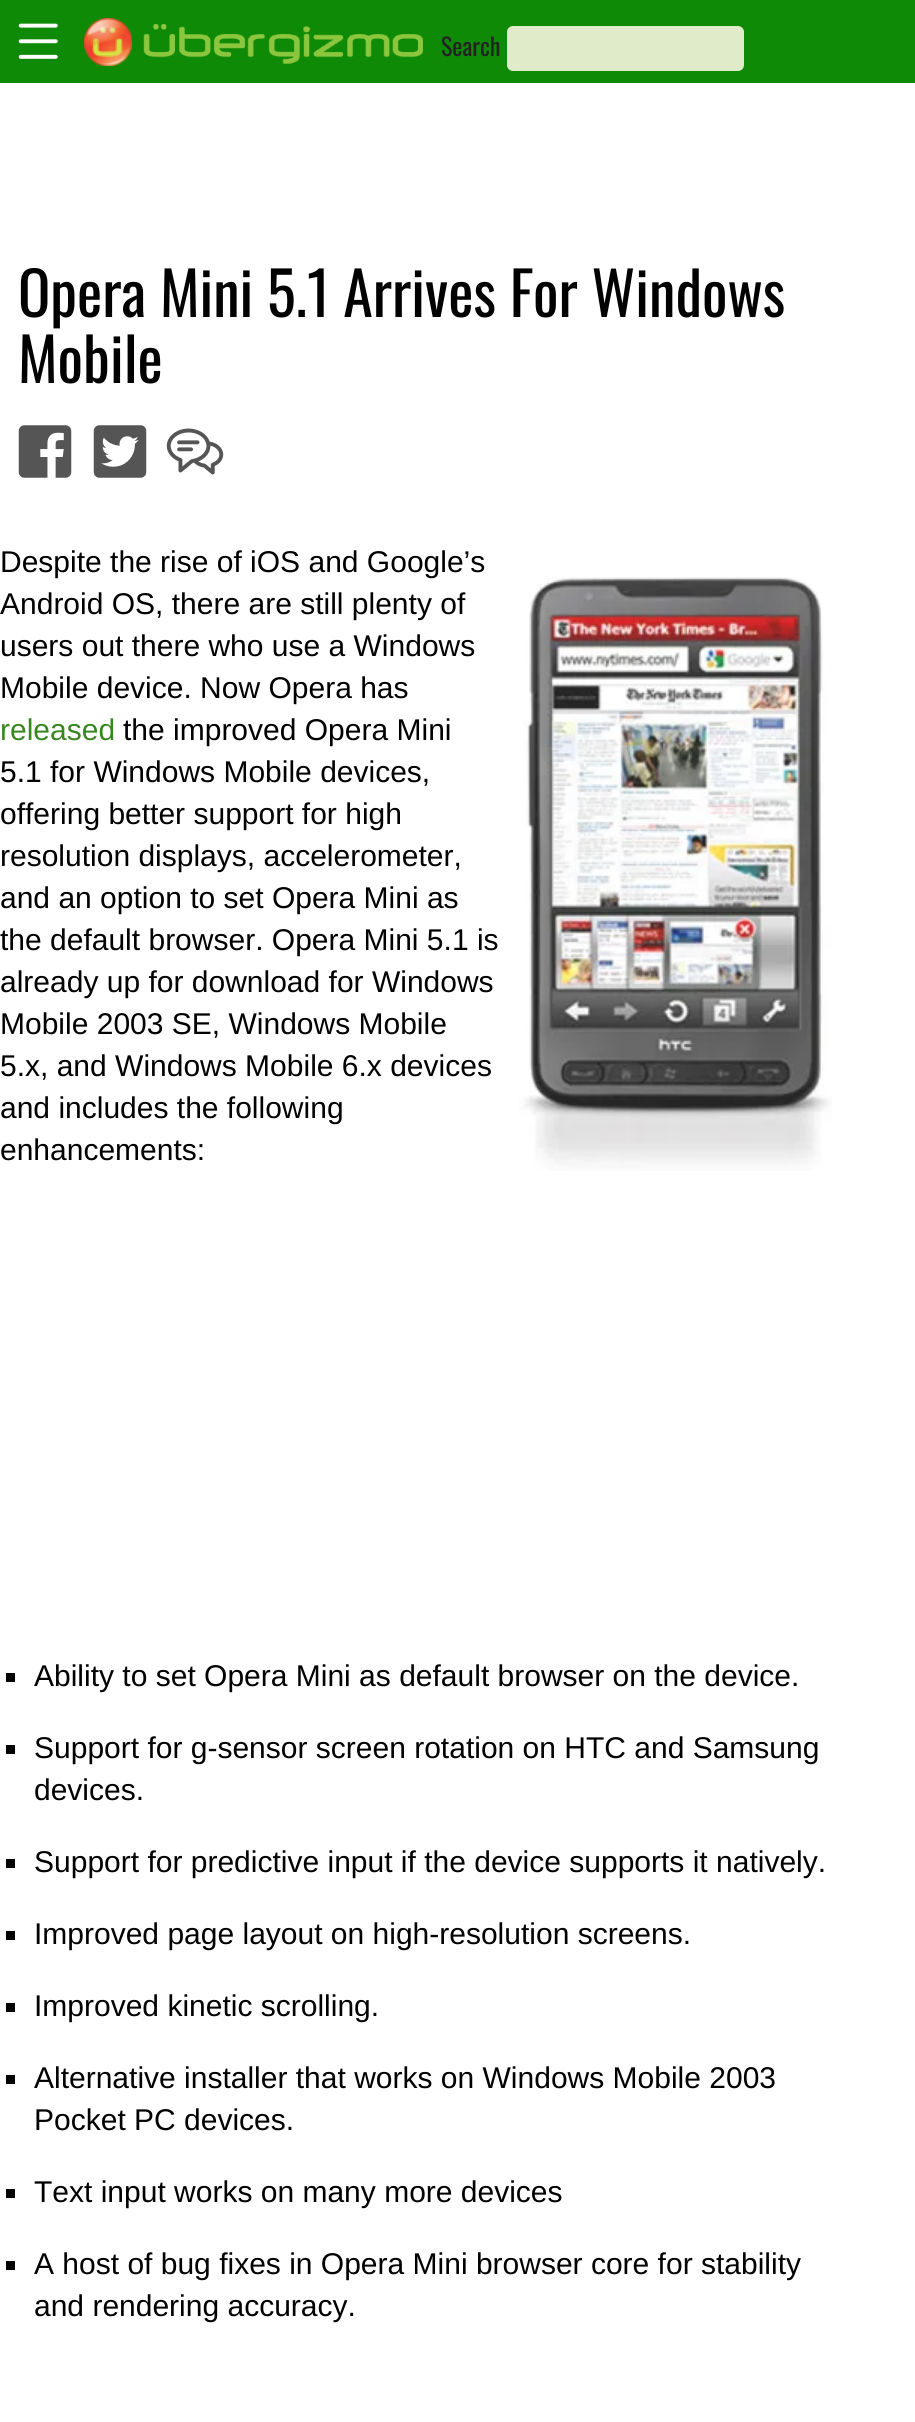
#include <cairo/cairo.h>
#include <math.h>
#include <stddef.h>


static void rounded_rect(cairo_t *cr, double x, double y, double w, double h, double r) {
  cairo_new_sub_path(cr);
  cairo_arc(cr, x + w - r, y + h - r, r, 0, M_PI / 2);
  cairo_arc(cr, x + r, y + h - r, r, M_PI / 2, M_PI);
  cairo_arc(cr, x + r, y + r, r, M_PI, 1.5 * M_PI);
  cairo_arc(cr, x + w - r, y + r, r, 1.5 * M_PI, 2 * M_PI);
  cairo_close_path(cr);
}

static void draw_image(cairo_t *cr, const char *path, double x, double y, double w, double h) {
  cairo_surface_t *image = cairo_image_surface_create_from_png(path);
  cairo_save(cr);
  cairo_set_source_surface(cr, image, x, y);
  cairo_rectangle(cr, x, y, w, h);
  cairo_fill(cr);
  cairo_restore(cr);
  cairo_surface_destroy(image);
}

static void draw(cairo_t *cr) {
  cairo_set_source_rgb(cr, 1, 1, 1);
  cairo_paint(cr);
  cairo_set_source_rgb(cr, 15 / 255.0, 138 / 255.0, 7 / 255.0);
  cairo_rectangle(cr, 0, 0, 915, 83);
  cairo_fill(cr);
  draw_image(cr, "images/1.png", 18, 23, 40, 36);
  draw_image(cr, "images/2.png", 84, 18, 48, 48);
  draw_image(cr, "images/3.png", 143, 23, 280, 41);
  cairo_set_source_rgb(cr, 224 / 255.0, 235 / 255.0, 201 / 255.0);
  rounded_rect(cr, 507, 26, 237, 45, 6);
  cairo_fill(cr);
  draw_image(cr, "images/4.png", 18, 425, 54, 53);
  draw_image(cr, "images/5.png", 93, 425, 54, 53);
  draw_image(cr, "images/6.png", 166, 428, 58, 47);
  draw_image(cr, "images/7.png", 519, 577, 313, 594);
  cairo_set_source_rgb(cr, 0, 0, 0);
  cairo_rectangle(cr, 6, 1673, 9, 9);
  cairo_fill(cr);
  cairo_rectangle(cr, 6, 1745, 9, 9);
  cairo_fill(cr);
  cairo_rectangle(cr, 6, 1859, 9, 9);
  cairo_fill(cr);
  cairo_rectangle(cr, 6, 1931, 9, 9);
  cairo_fill(cr);
  cairo_rectangle(cr, 6, 2003, 9, 9);
  cairo_fill(cr);
  cairo_rectangle(cr, 6, 2075, 9, 9);
  cairo_fill(cr);
  cairo_rectangle(cr, 6, 2189, 9, 9);
  cairo_fill(cr);
  cairo_rectangle(cr, 6, 2261, 9, 9);
  cairo_fill(cr);
  cairo_select_font_face(cr, "Oswald", CAIRO_FONT_SLANT_NORMAL, CAIRO_FONT_WEIGHT_NORMAL);
  cairo_set_font_size(cr, 24);
  cairo_set_source_rgb(cr, 34 / 255.0, 34 / 255.0, 34 / 255.0);
  cairo_move_to(cr, 441, 56);
  cairo_show_text(cr, "Search");
  cairo_set_font_size(cr, 60);
  cairo_set_source_rgb(cr, 0, 0, 0);
  cairo_move_to(cr, 18, 317);
  cairo_show_text(cr, "Opera Mini 5.1 Arrives For Windows");
  cairo_move_to(cr, 18, 383);
  cairo_show_text(cr, "Mobile");
  cairo_select_font_face(cr, "Liberation Sans", CAIRO_FONT_SLANT_NORMAL, CAIRO_FONT_WEIGHT_NORMAL);
  cairo_set_font_size(cr, 30);
  cairo_move_to(cr, 0, 572);
  cairo_show_text(cr, "Despite the rise of iOS and Google’s");
  cairo_move_to(cr, 0, 614);
  cairo_show_text(cr, "Android OS, there are still plenty of");
  cairo_move_to(cr, 0, 656);
  cairo_show_text(cr, "users out there who use a Windows");
  cairo_move_to(cr, 0, 698);
  cairo_show_text(cr, "Mobile device. Now Opera has");
  cairo_set_source_rgb(cr, 57 / 255.0, 135 / 255.0, 32 / 255.0);
  cairo_move_to(cr, 0, 740);
  cairo_show_text(cr, "released");
  cairo_set_source_rgb(cr, 0, 0, 0);
  cairo_move_to(cr, 123, 740);
  cairo_show_text(cr, "the improved Opera Mini");
  cairo_move_to(cr, 0, 782);
  cairo_show_text(cr, "5.1 for Windows Mobile devices,");
  cairo_move_to(cr, 0, 824);
  cairo_show_text(cr, "offering better support for high");
  cairo_move_to(cr, 0, 866);
  cairo_show_text(cr, "resolution displays, accelerometer,");
  cairo_move_to(cr, 0, 908);
  cairo_show_text(cr, "and an option to set Opera Mini as");
  cairo_move_to(cr, 0, 950);
  cairo_show_text(cr, "the default browser. Opera Mini 5.1 is");
  cairo_move_to(cr, 0, 992);
  cairo_show_text(cr, "already up for download for Windows");
  cairo_move_to(cr, 0, 1034);
  cairo_show_text(cr, "Mobile 2003 SE, Windows Mobile");
  cairo_move_to(cr, 0, 1076);
  cairo_show_text(cr, "5.x, and Windows Mobile 6.x devices");
  cairo_move_to(cr, 0, 1118);
  cairo_show_text(cr, "and includes the following");
  cairo_move_to(cr, 0, 1160);
  cairo_show_text(cr, "enhancements:");
  cairo_move_to(cr, 34, 1686);
  cairo_show_text(cr, "Ability to set Opera Mini as default browser on the device.");
  cairo_move_to(cr, 34, 1758);
  cairo_show_text(cr, "Support for g-sensor screen rotation on HTC and Samsung");
  cairo_move_to(cr, 34, 1800);
  cairo_show_text(cr, "devices.");
  cairo_move_to(cr, 34, 1872);
  cairo_show_text(cr, "Support for predictive input if the device supports it natively.");
  cairo_move_to(cr, 34, 1944);
  cairo_show_text(cr, "Improved page layout on high-resolution screens.");
  cairo_move_to(cr, 34, 2016);
  cairo_show_text(cr, "Improved kinetic scrolling.");
  cairo_move_to(cr, 34, 2088);
  cairo_show_text(cr, "Alternative installer that works on Windows Mobile 2003");
  cairo_move_to(cr, 34, 2130);
  cairo_show_text(cr, "Pocket PC devices.");
  cairo_move_to(cr, 34, 2202);
  cairo_show_text(cr, "Text input works on many more devices");
  cairo_move_to(cr, 34, 2274);
  cairo_show_text(cr, "A host of bug fixes in Opera Mini browser core for stability");
  cairo_move_to(cr, 34, 2316);
  cairo_show_text(cr, "and rendering accuracy.");
}

int main(void) {
  cairo_surface_t *surface = cairo_image_surface_create(CAIRO_FORMAT_RGB24, 915, 2422);
  cairo_t *cr = cairo_create(surface);
  cairo_font_options_t *options = cairo_font_options_create();
  cairo_font_options_set_hint_metrics(options, CAIRO_HINT_METRICS_OFF);
  cairo_font_options_set_hint_style(options, CAIRO_HINT_STYLE_NONE);
  cairo_set_font_options(cr, options);
  cairo_set_miter_limit(cr, 4);
  draw(cr);
  cairo_surface_write_to_png(surface, "out.png");
  cairo_font_options_destroy(options);
  cairo_destroy(cr);
  cairo_surface_destroy(surface);
  return 0;
}
